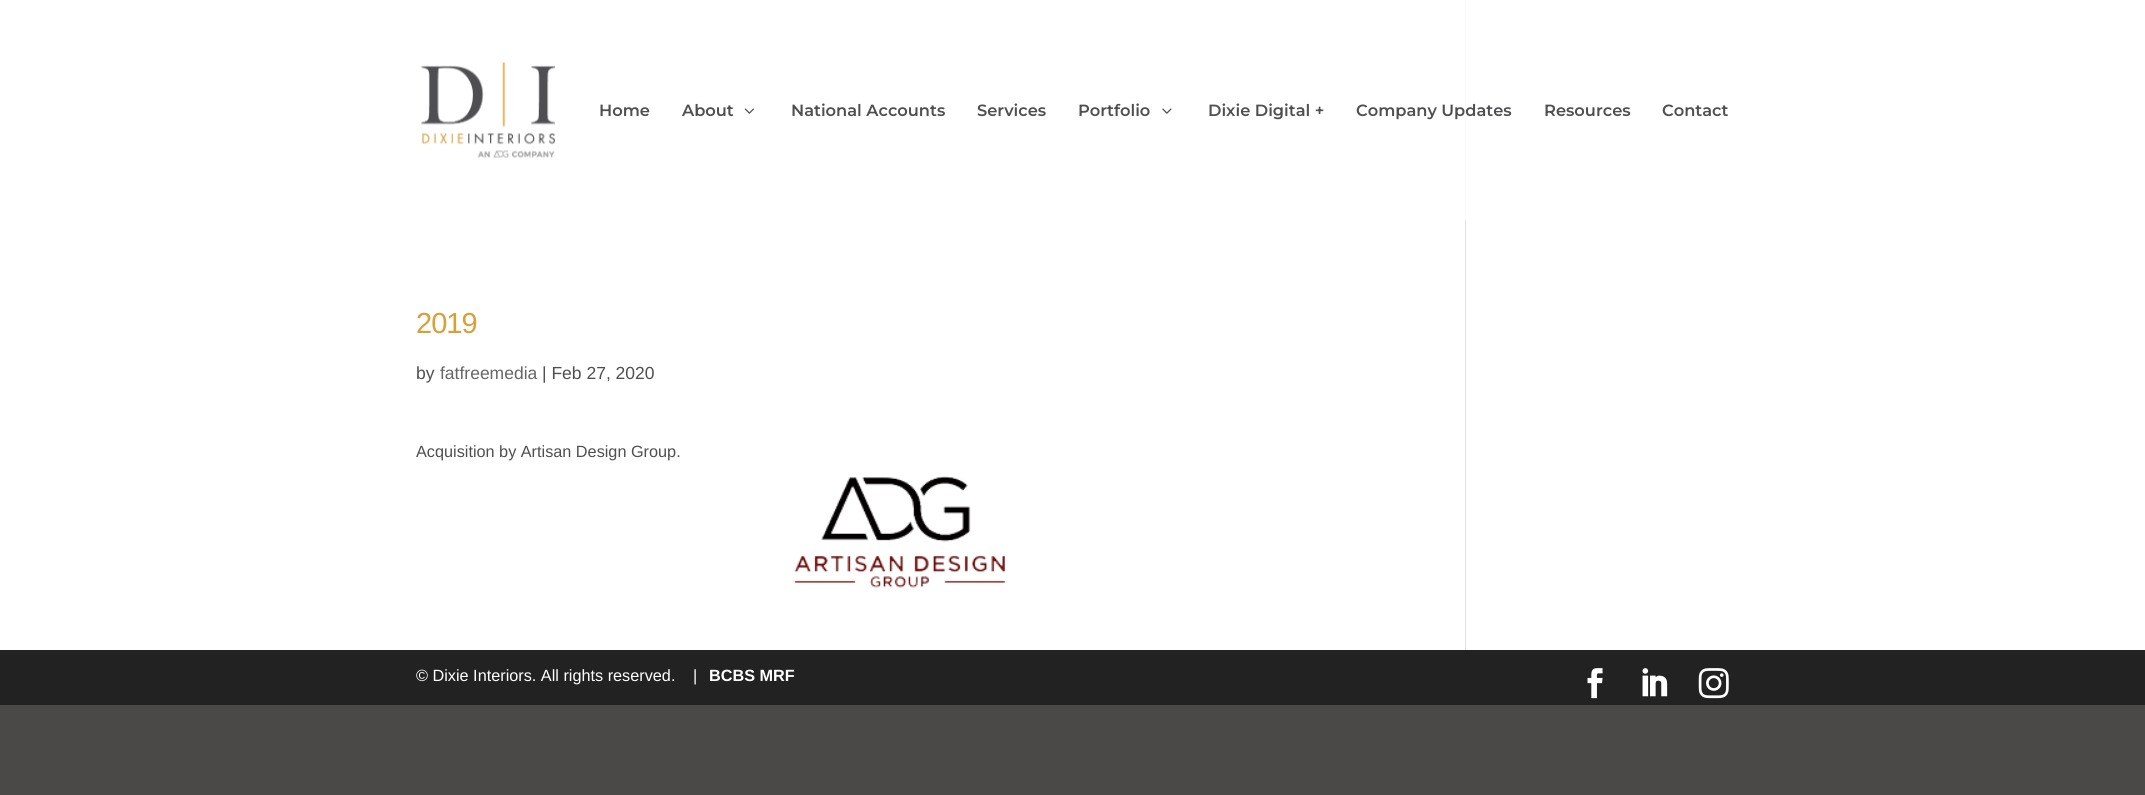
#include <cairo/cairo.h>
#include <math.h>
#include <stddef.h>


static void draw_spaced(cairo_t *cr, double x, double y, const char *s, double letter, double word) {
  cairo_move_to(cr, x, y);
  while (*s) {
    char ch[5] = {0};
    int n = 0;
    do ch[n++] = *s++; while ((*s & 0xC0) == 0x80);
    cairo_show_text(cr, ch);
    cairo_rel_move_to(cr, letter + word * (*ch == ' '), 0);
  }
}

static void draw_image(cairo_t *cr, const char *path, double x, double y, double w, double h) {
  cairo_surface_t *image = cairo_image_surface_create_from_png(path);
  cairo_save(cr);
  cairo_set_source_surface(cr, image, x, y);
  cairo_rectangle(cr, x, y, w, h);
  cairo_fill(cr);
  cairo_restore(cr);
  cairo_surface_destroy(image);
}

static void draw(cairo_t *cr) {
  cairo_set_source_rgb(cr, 75 / 255.0, 73 / 255.0, 71 / 255.0);
  cairo_paint(cr);
  cairo_set_source_rgb(cr, 1, 1, 1);
  cairo_rectangle(cr, 0, 0, 2145, 650);
  cairo_fill(cr);
  draw_image(cr, "images/1.png", 421, 62, 134, 96);
  draw_image(cr, "images/2.png", 744, 108, 10, 6);
  draw_image(cr, "images/3.png", 1162, 108, 10, 6);
  draw_image(cr, "images/4.png", 794, 476, 211, 112);
  cairo_set_source_rgb(cr, 226 / 255.0, 226 / 255.0, 226 / 255.0);
  cairo_rectangle(cr, 1465, 220, 1, 430);
  cairo_fill(cr);
  cairo_set_source_rgb(cr, 252 / 255.0, 252 / 255.0, 252 / 255.0);
  cairo_rectangle(cr, 1465, 0, 1, 220);
  cairo_fill(cr);
  cairo_set_source_rgb(cr, 34 / 255.0, 34 / 255.0, 34 / 255.0);
  cairo_rectangle(cr, 0, 650, 2145, 55);
  cairo_fill(cr);
  draw_image(cr, "images/5.png", 1587, 668, 16, 31);
  draw_image(cr, "images/6.png", 1642, 668, 26, 29);
  draw_image(cr, "images/7.png", 1698, 668, 31, 31);
  cairo_select_font_face(cr, "Montserrat Thin", CAIRO_FONT_SLANT_NORMAL, CAIRO_FONT_WEIGHT_NORMAL);
  cairo_set_font_size(cr, 16.25);
  cairo_set_source_rgb(cr, 79 / 255.0, 79 / 255.0, 81 / 255.0);
  cairo_move_to(cr, 599, 116);
  cairo_show_text(cr, "Home");
  cairo_move_to(cr, 682, 116);
  cairo_show_text(cr, "About");
  cairo_move_to(cr, 791, 116);
  cairo_show_text(cr, "National Accounts");
  cairo_move_to(cr, 977, 116);
  cairo_show_text(cr, "Services");
  cairo_move_to(cr, 1078, 116);
  cairo_show_text(cr, "Portfolio");
  cairo_move_to(cr, 1208, 116);
  cairo_show_text(cr, "Dixie Digital +");
  cairo_move_to(cr, 1356, 116);
  cairo_show_text(cr, "Company Updates");
  cairo_move_to(cr, 1544, 116);
  cairo_show_text(cr, "Resources");
  cairo_move_to(cr, 1662, 116);
  cairo_show_text(cr, "Contact");
  cairo_select_font_face(cr, "Liberation Sans", CAIRO_FONT_SLANT_NORMAL, CAIRO_FONT_WEIGHT_NORMAL);
  cairo_set_font_size(cr, 29);
  cairo_set_source_rgb(cr, 217 / 255.0, 159 / 255.0, 56 / 255.0);
  draw_spaced(cr, 416, 333, "2019", -1, 0);
  cairo_set_font_size(cr, 17.5);
  cairo_set_source_rgb(cr, 79 / 255.0, 79 / 255.0, 81 / 255.0);
  cairo_move_to(cr, 416, 379);
  cairo_show_text(cr, "by");
  cairo_set_source_rgb(cr, 102 / 255.0, 102 / 255.0, 102 / 255.0);
  cairo_move_to(cr, 440, 379);
  cairo_show_text(cr, "fatfreemedia");
  cairo_set_source_rgb(cr, 79 / 255.0, 79 / 255.0, 81 / 255.0);
  cairo_move_to(cr, 542, 379);
  cairo_show_text(cr, "| Feb 27, 2020");
  cairo_set_font_size(cr, 16.25);
  cairo_move_to(cr, 416, 457);
  cairo_show_text(cr, "Acquisition by Artisan Design Group.");
  cairo_set_source_rgb(cr, 1, 1, 1);
  cairo_move_to(cr, 416, 681);
  cairo_show_text(cr, "© Dixie Interiors. All rights reserved.");
  cairo_move_to(cr, 693, 681);
  cairo_show_text(cr, "|");
  cairo_select_font_face(cr, "Liberation Sans", CAIRO_FONT_SLANT_NORMAL, CAIRO_FONT_WEIGHT_BOLD);
  cairo_move_to(cr, 709, 681);
  cairo_show_text(cr, "BCBS MRF");
}

int main(void) {
  cairo_surface_t *surface = cairo_image_surface_create(CAIRO_FORMAT_RGB24, 2145, 795);
  cairo_t *cr = cairo_create(surface);
  cairo_font_options_t *options = cairo_font_options_create();
  cairo_font_options_set_hint_metrics(options, CAIRO_HINT_METRICS_OFF);
  cairo_font_options_set_hint_style(options, CAIRO_HINT_STYLE_NONE);
  cairo_set_font_options(cr, options);
  cairo_set_miter_limit(cr, 4);
  draw(cr);
  cairo_surface_write_to_png(surface, "out.png");
  cairo_font_options_destroy(options);
  cairo_destroy(cr);
  cairo_surface_destroy(surface);
  return 0;
}
